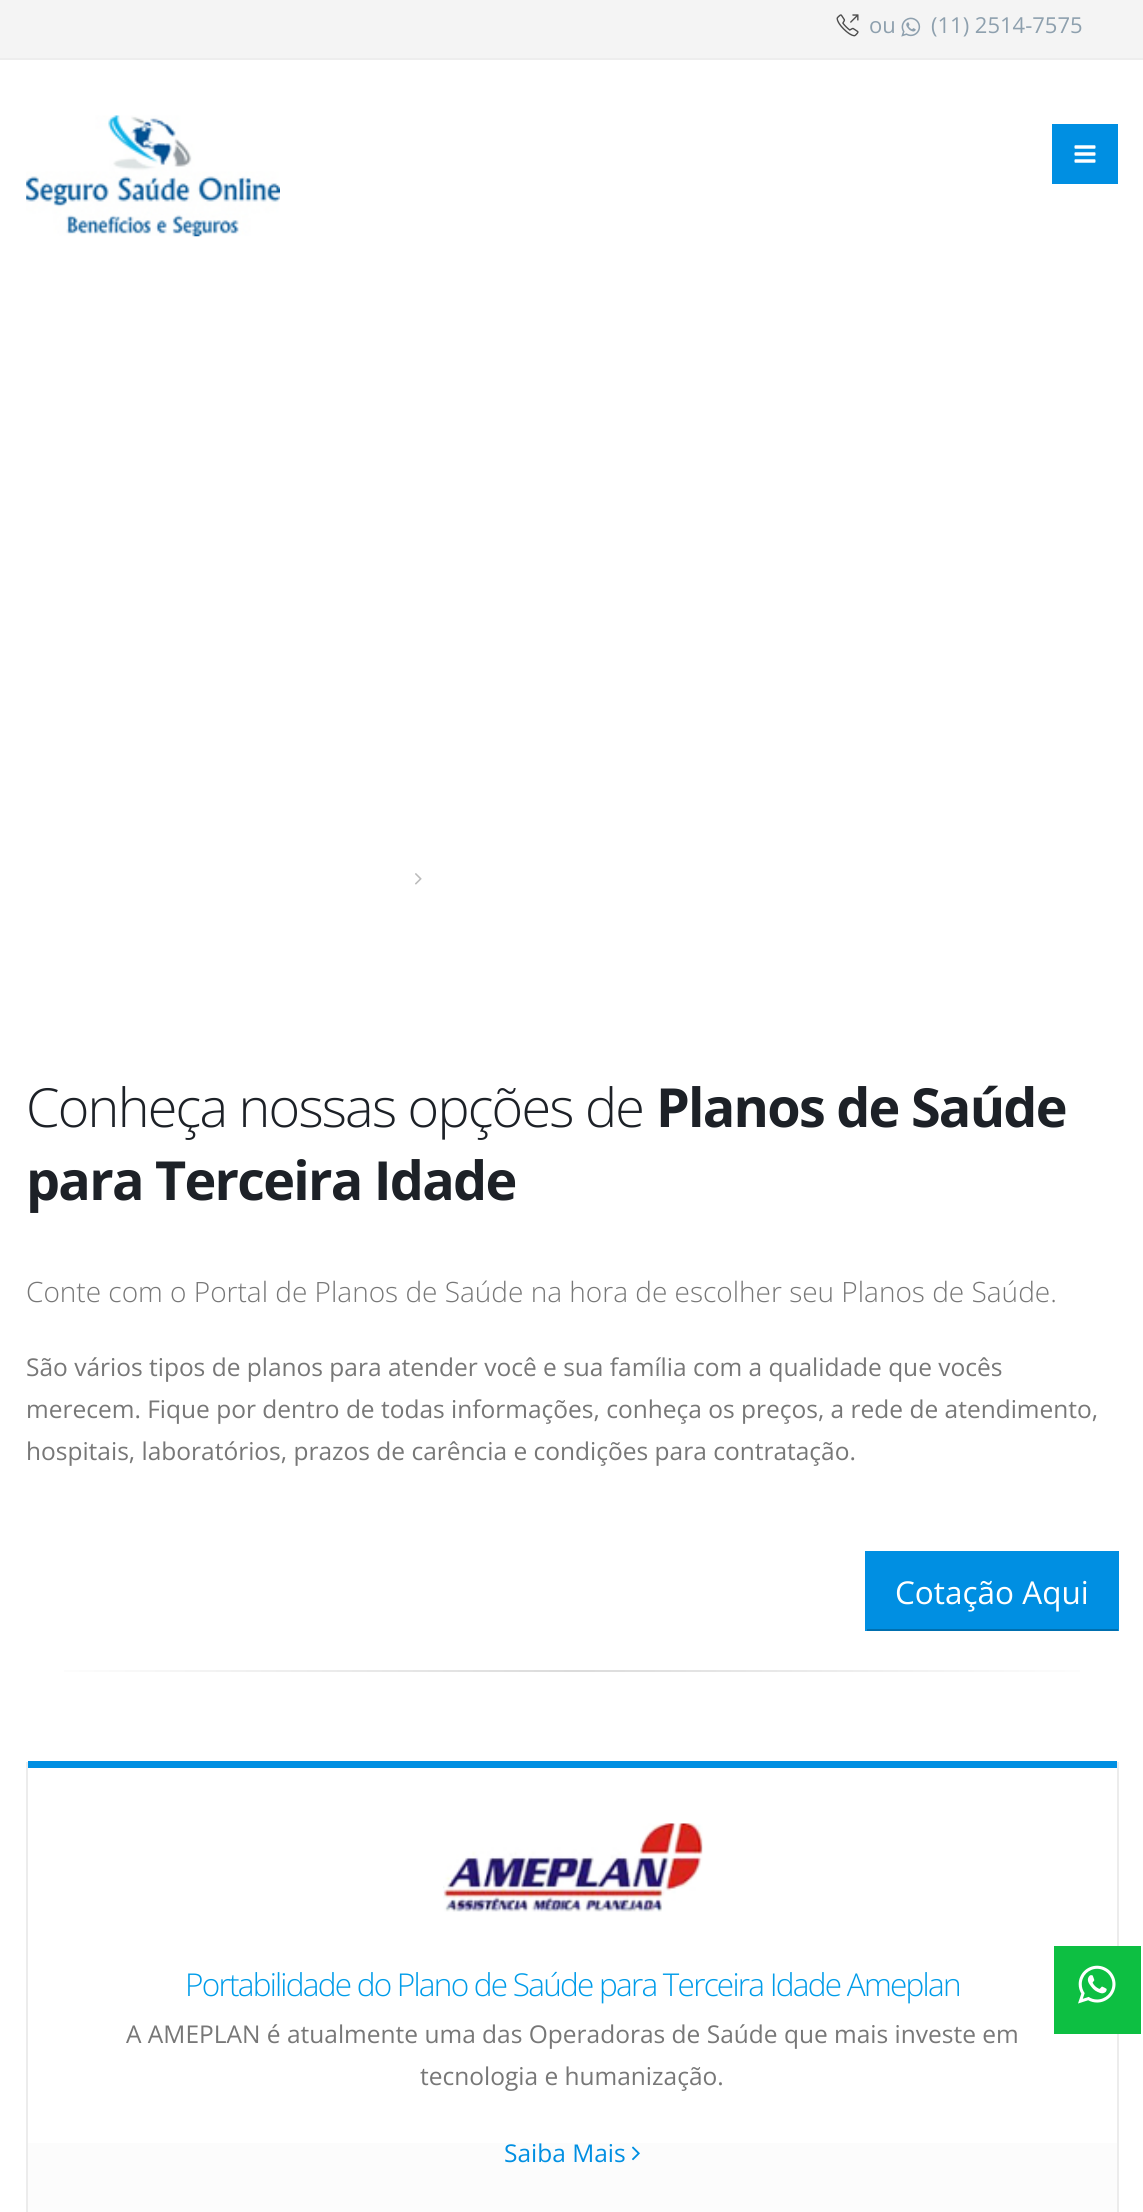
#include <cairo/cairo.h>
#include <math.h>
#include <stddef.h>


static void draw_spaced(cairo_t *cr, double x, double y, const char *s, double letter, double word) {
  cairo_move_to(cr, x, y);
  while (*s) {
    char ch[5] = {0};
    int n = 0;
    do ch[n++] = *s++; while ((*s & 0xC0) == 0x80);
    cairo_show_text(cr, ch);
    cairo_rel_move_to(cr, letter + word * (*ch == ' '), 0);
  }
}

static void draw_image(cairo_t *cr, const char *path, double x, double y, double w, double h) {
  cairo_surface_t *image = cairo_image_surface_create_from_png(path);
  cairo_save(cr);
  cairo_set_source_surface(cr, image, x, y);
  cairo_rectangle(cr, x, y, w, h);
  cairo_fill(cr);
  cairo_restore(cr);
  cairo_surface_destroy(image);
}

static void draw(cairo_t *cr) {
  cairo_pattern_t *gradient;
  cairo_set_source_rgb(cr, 1, 1, 1);
  cairo_paint(cr);
  cairo_set_source_rgb(cr, 244 / 255.0, 244 / 255.0, 244 / 255.0);
  cairo_rectangle(cr, 0, 0, 1143, 58);
  cairo_fill(cr);
  cairo_set_source_rgb(cr, 237 / 255.0, 237 / 255.0, 237 / 255.0);
  cairo_rectangle(cr, 0, 58, 1143, 2);
  cairo_fill(cr);
  draw_image(cr, "images/1.png", 836, 14, 23, 23);
  draw_image(cr, "images/2.png", 901, 17, 20, 20);
  draw_image(cr, "images/3.png", 26, 115, 254, 122);
  cairo_set_source_rgb(cr, 0, 143 / 255.0, 226 / 255.0);
  cairo_rectangle(cr, 1052, 124, 66, 60);
  cairo_fill(cr);
  draw_image(cr, "images/4.png", 1074, 145, 22, 18);
  draw_image(cr, "images/5.png", 415, 873, 7, 12);
  cairo_rectangle(cr, 867, 1551, 250, 78);
  cairo_fill(cr);
  cairo_rectangle(cr, 1117, 1551, 2, 80);
  cairo_fill(cr);
  cairo_set_source_rgb(cr, 0, 111 / 255.0, 175 / 255.0);
  cairo_rectangle(cr, 865, 1629, 253, 2);
  cairo_fill(cr);
  cairo_set_source_rgb(cr, 0, 143 / 255.0, 226 / 255.0);
  cairo_rectangle(cr, 865, 1551, 2, 80);
  cairo_fill(cr);
  gradient = cairo_pattern_create_linear(26, 1670, 1118, 1670);
  cairo_pattern_add_color_stop_rgba(gradient, 0, 1, 1, 1, 1);
  cairo_pattern_add_color_stop_rgba(gradient, 0.5, 219 / 255.0, 219 / 255.0, 219 / 255.0, 1);
  cairo_pattern_add_color_stop_rgba(gradient, 1, 1, 1, 1, 1);
  cairo_set_source(cr, gradient);
  cairo_pattern_destroy(gradient);
  cairo_rectangle(cr, 64, 1670, 1016, 2);
  cairo_fill(cr);
  gradient = cairo_pattern_create_linear(572, 1762, 572, 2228);
  cairo_pattern_add_color_stop_rgba(gradient, 0.01, 1, 1, 1, 1);
  cairo_pattern_add_color_stop_rgba(gradient, 0.98, 252 / 255.0, 252 / 255.0, 252 / 255.0, 1);
  cairo_set_source(cr, gradient);
  cairo_pattern_destroy(gradient);
  cairo_rectangle(cr, 28, 2143, 1089, 69);
  cairo_fill(cr);
  cairo_set_source_rgb(cr, 236 / 255.0, 236 / 255.0, 236 / 255.0);
  cairo_rectangle(cr, 1117, 1762, 2, 450);
  cairo_fill(cr);
  cairo_rectangle(cr, 26, 1762, 2, 450);
  cairo_fill(cr);
  cairo_set_source_rgb(cr, 0, 143 / 255.0, 226 / 255.0);
  cairo_rectangle(cr, 28, 1761, 1089, 7);
  cairo_fill(cr);
  draw_image(cr, "images/6.png", 443, 1823, 260, 89);
  draw_image(cr, "images/7.png", 632, 2146, 8, 15);
  cairo_set_source_rgb(cr, 13 / 255.0, 191 / 255.0, 66 / 255.0);
  cairo_rectangle(cr, 1054, 1946, 87, 88);
  cairo_fill(cr);
  draw_image(cr, "images/8.png", 1078, 1965, 38, 39);
  cairo_select_font_face(cr, "Open Sans", CAIRO_FONT_SLANT_NORMAL, CAIRO_FONT_WEIGHT_NORMAL);
  cairo_set_font_size(cr, 22);
  cairo_set_source_rgb(cr, 142 / 255.0, 160 / 255.0, 174 / 255.0);
  cairo_move_to(cr, 869, 33);
  cairo_show_text(cr, "ou");
  cairo_move_to(cr, 931, 33);
  cairo_show_text(cr, "(11) 2514-7575");
  cairo_select_font_face(cr, "Open Sans Light", CAIRO_FONT_SLANT_NORMAL, CAIRO_FONT_WEIGHT_NORMAL);
  cairo_set_font_size(cr, 53.9);
  cairo_set_source_rgb(cr, 29 / 255.0, 33 / 255.0, 39 / 255.0);
  draw_spaced(cr, 26, 1127, "Conheça nossas opções de", -1.75, 0);
  cairo_select_font_face(cr, "Open Sans", CAIRO_FONT_SLANT_NORMAL, CAIRO_FONT_WEIGHT_BOLD);
  draw_spaced(cr, 656, 1127, "Planos de Saúde", -1.75, 0);
  draw_spaced(cr, 26, 1200, "para Terceira Idade", -1.75, 0);
  cairo_select_font_face(cr, "Open Sans Light", CAIRO_FONT_SLANT_NORMAL, CAIRO_FONT_WEIGHT_NORMAL);
  cairo_set_font_size(cr, 28);
  cairo_set_source_rgb(cr, 119 / 255.0, 119 / 255.0, 119 / 255.0);
  cairo_move_to(cr, 26, 1302);
  cairo_show_text(cr, "Conte com o Portal de Planos de Saúde na hora de escolher seu Planos de Saúde.");
  cairo_select_font_face(cr, "Open Sans", CAIRO_FONT_SLANT_NORMAL, CAIRO_FONT_WEIGHT_NORMAL);
  cairo_set_font_size(cr, 24.5);
  cairo_move_to(cr, 26, 1376);
  cairo_show_text(cr, "São vários tipos de planos para atender você e sua família com a qualidade que vocês");
  cairo_move_to(cr, 26, 1418);
  cairo_show_text(cr, "merecem. Fique por dentro de todas informações, conheça os preços, a rede de atendimento,");
  cairo_move_to(cr, 26, 1460);
  cairo_show_text(cr, "hospitais, laboratórios, prazos de carência e condições para contratação.");
  cairo_set_font_size(cr, 31.5);
  cairo_set_source_rgb(cr, 1, 1, 1);
  cairo_move_to(cr, 895, 1604);
  cairo_show_text(cr, "Cotação Aqui");
  cairo_select_font_face(cr, "Open Sans Light", CAIRO_FONT_SLANT_NORMAL, CAIRO_FONT_WEIGHT_NORMAL);
  cairo_set_source_rgb(cr, 0, 156 / 255.0, 233 / 255.0);
  draw_spaced(cr, 185, 1996, "Portabilidade do Plano de Saúde para Terceira Idade Ameplan", -1.75, 0);
  cairo_select_font_face(cr, "Open Sans", CAIRO_FONT_SLANT_NORMAL, CAIRO_FONT_WEIGHT_NORMAL);
  cairo_set_font_size(cr, 24.5);
  cairo_set_source_rgb(cr, 119 / 255.0, 119 / 255.0, 119 / 255.0);
  cairo_move_to(cr, 126, 2043);
  cairo_show_text(cr, "A AMEPLAN é atualmente uma das Operadoras de Saúde que mais investe em");
  cairo_move_to(cr, 420, 2085);
  cairo_show_text(cr, "tecnologia e humanização.");
  cairo_set_source_rgb(cr, 0, 143 / 255.0, 226 / 255.0);
  cairo_move_to(cr, 504, 2162);
  cairo_show_text(cr, "Saiba Mais");
}

int main(void) {
  cairo_surface_t *surface = cairo_image_surface_create(CAIRO_FORMAT_RGB24, 1143, 2212);
  cairo_t *cr = cairo_create(surface);
  cairo_font_options_t *options = cairo_font_options_create();
  cairo_font_options_set_hint_metrics(options, CAIRO_HINT_METRICS_OFF);
  cairo_font_options_set_hint_style(options, CAIRO_HINT_STYLE_NONE);
  cairo_set_font_options(cr, options);
  cairo_set_miter_limit(cr, 4);
  draw(cr);
  cairo_surface_write_to_png(surface, "out.png");
  cairo_font_options_destroy(options);
  cairo_destroy(cr);
  cairo_surface_destroy(surface);
  return 0;
}
